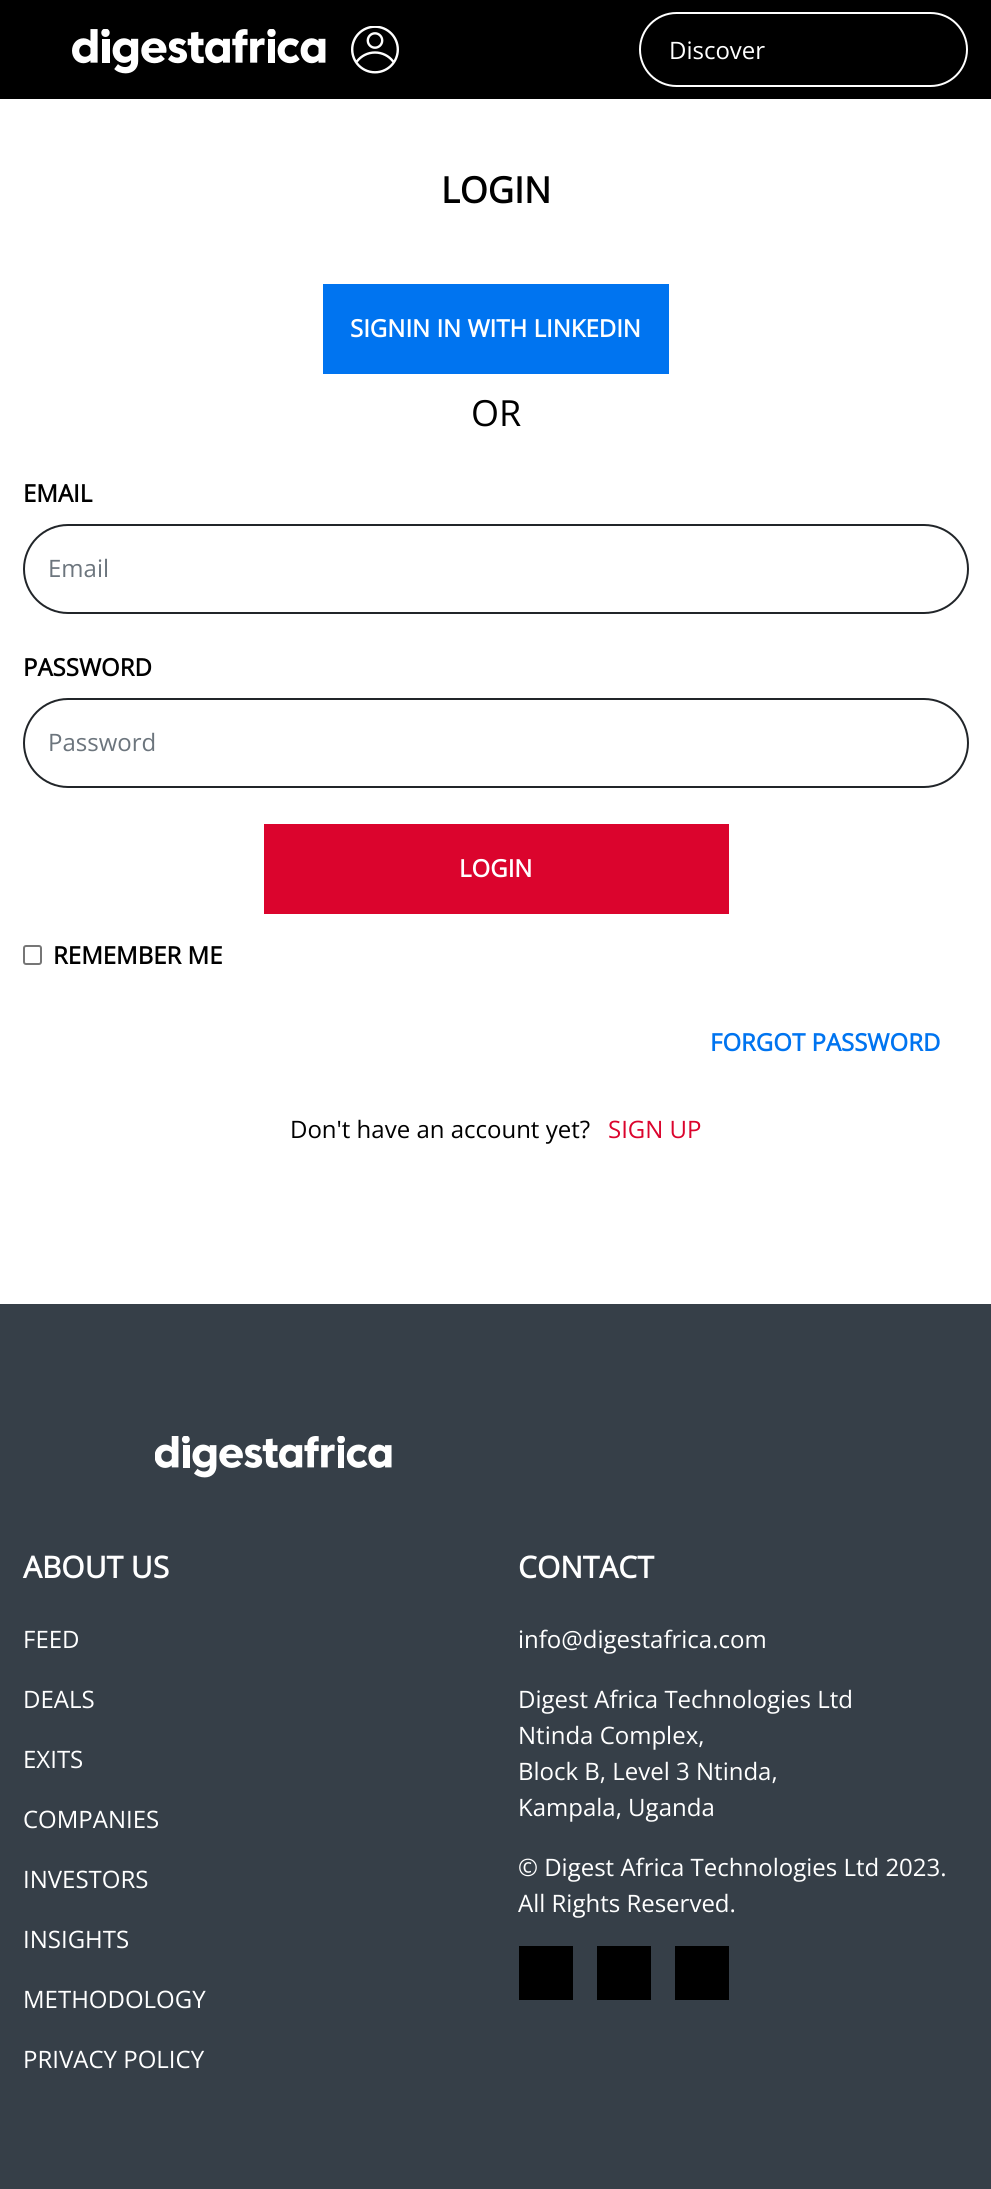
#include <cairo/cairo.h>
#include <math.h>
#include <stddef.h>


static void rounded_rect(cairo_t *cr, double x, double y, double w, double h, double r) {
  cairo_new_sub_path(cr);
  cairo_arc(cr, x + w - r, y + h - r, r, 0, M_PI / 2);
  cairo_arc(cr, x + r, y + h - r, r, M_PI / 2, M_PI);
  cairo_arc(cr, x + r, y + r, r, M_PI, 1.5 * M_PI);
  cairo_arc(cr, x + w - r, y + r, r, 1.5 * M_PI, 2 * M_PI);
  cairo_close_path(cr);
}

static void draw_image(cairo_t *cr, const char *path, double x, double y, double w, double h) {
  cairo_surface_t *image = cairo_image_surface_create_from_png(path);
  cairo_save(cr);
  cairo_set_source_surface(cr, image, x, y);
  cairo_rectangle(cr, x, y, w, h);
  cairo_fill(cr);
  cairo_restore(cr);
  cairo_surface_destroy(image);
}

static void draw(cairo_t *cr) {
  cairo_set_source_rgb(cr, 1, 1, 1);
  cairo_paint(cr);
  cairo_set_source_rgb(cr, 0, 0, 0);
  cairo_rectangle(cr, 0, 0, 991, 99);
  cairo_fill(cr);
  draw_image(cr, "images/1.png", 72, 29, 254, 45);
  draw_image(cr, "images/2.png", 351, 26, 48, 48);
  rounded_rect(cr, 640, 13, 327, 73, 36.5);
  cairo_set_source_rgb(cr, 1, 1, 1);
  cairo_stroke(cr);
  cairo_set_source_rgb(cr, 0, 116 / 255.0, 240 / 255.0);
  cairo_rectangle(cr, 323, 284, 346, 90);
  cairo_fill(cr);
  rounded_rect(cr, 24, 525, 944, 88, 44);
  cairo_set_source_rgb(cr, 33 / 255.0, 37 / 255.0, 41 / 255.0);
  cairo_stroke(cr);
  rounded_rect(cr, 24, 699, 944, 88, 44);
  cairo_stroke(cr);
  cairo_set_source_rgb(cr, 219 / 255.0, 4 / 255.0, 45 / 255.0);
  cairo_rectangle(cr, 264, 824, 465, 90);
  cairo_fill(cr);
  rounded_rect(cr, 24, 946, 17, 18, 2);
  cairo_set_source_rgb(cr, 118 / 255.0, 118 / 255.0, 118 / 255.0);
  cairo_stroke(cr);
  cairo_set_source_rgb(cr, 54 / 255.0, 63 / 255.0, 72 / 255.0);
  cairo_rectangle(cr, 0, 1304, 991, 885);
  cairo_fill(cr);
  draw_image(cr, "images/3.png", 155, 1436, 237, 42);
  cairo_set_source_rgb(cr, 0, 0, 0);
  cairo_rectangle(cr, 519, 1946, 54, 54);
  cairo_fill(cr);
  cairo_rectangle(cr, 597, 1946, 54, 54);
  cairo_fill(cr);
  cairo_rectangle(cr, 675, 1946, 54, 54);
  cairo_fill(cr);
  cairo_select_font_face(cr, "Open Sans", CAIRO_FONT_SLANT_NORMAL, CAIRO_FONT_WEIGHT_NORMAL);
  cairo_set_font_size(cr, 24);
  cairo_set_source_rgb(cr, 1, 1, 1);
  cairo_move_to(cr, 669, 59);
  cairo_show_text(cr, "Discover");
  cairo_select_font_face(cr, "Open Sans", CAIRO_FONT_SLANT_NORMAL, CAIRO_FONT_WEIGHT_BOLD);
  cairo_set_font_size(cr, 36);
  cairo_set_source_rgb(cr, 0, 0, 0);
  cairo_move_to(cr, 441, 203);
  cairo_show_text(cr, "LOGIN");
  cairo_set_font_size(cr, 24);
  cairo_set_source_rgb(cr, 1, 1, 1);
  cairo_move_to(cr, 350, 337);
  cairo_show_text(cr, "SIGNIN IN WITH LINKEDIN");
  cairo_select_font_face(cr, "Open Sans", CAIRO_FONT_SLANT_NORMAL, CAIRO_FONT_WEIGHT_NORMAL);
  cairo_set_font_size(cr, 36);
  cairo_set_source_rgb(cr, 0, 0, 0);
  cairo_move_to(cr, 471, 426);
  cairo_show_text(cr, "OR");
  cairo_select_font_face(cr, "Open Sans", CAIRO_FONT_SLANT_NORMAL, CAIRO_FONT_WEIGHT_BOLD);
  cairo_set_font_size(cr, 24);
  cairo_move_to(cr, 23, 502);
  cairo_show_text(cr, "EMAIL");
  cairo_select_font_face(cr, "Open Sans", CAIRO_FONT_SLANT_NORMAL, CAIRO_FONT_WEIGHT_NORMAL);
  cairo_set_source_rgb(cr, 108 / 255.0, 117 / 255.0, 125 / 255.0);
  cairo_move_to(cr, 48, 577);
  cairo_show_text(cr, "Email");
  cairo_select_font_face(cr, "Open Sans", CAIRO_FONT_SLANT_NORMAL, CAIRO_FONT_WEIGHT_BOLD);
  cairo_set_source_rgb(cr, 0, 0, 0);
  cairo_move_to(cr, 23, 676);
  cairo_show_text(cr, "PASSWORD");
  cairo_select_font_face(cr, "Open Sans", CAIRO_FONT_SLANT_NORMAL, CAIRO_FONT_WEIGHT_NORMAL);
  cairo_set_source_rgb(cr, 108 / 255.0, 117 / 255.0, 125 / 255.0);
  cairo_move_to(cr, 48, 751);
  cairo_show_text(cr, "Password");
  cairo_select_font_face(cr, "Open Sans", CAIRO_FONT_SLANT_NORMAL, CAIRO_FONT_WEIGHT_BOLD);
  cairo_set_source_rgb(cr, 1, 1, 1);
  cairo_move_to(cr, 459, 877);
  cairo_show_text(cr, "LOGIN");
  cairo_set_source_rgb(cr, 0, 0, 0);
  cairo_move_to(cr, 53, 964);
  cairo_show_text(cr, "REMEMBER ME");
  cairo_set_source_rgb(cr, 0, 116 / 255.0, 240 / 255.0);
  cairo_move_to(cr, 710, 1051);
  cairo_show_text(cr, "FORGOT PASSWORD");
  cairo_select_font_face(cr, "Open Sans", CAIRO_FONT_SLANT_NORMAL, CAIRO_FONT_WEIGHT_NORMAL);
  cairo_set_source_rgb(cr, 0, 0, 0);
  cairo_move_to(cr, 290, 1138);
  cairo_show_text(cr, "Don't have an account yet?");
  cairo_set_source_rgb(cr, 219 / 255.0, 4 / 255.0, 45 / 255.0);
  cairo_move_to(cr, 608, 1138);
  cairo_show_text(cr, "SIGN UP");
  cairo_select_font_face(cr, "Open Sans", CAIRO_FONT_SLANT_NORMAL, CAIRO_FONT_WEIGHT_BOLD);
  cairo_set_font_size(cr, 30);
  cairo_set_source_rgb(cr, 1, 1, 1);
  cairo_move_to(cr, 23, 1578);
  cairo_show_text(cr, "ABOUT US");
  cairo_select_font_face(cr, "Open Sans", CAIRO_FONT_SLANT_NORMAL, CAIRO_FONT_WEIGHT_NORMAL);
  cairo_set_font_size(cr, 24);
  cairo_move_to(cr, 23, 1648);
  cairo_show_text(cr, "FEED");
  cairo_move_to(cr, 23, 1708);
  cairo_show_text(cr, "DEALS");
  cairo_move_to(cr, 23, 1768);
  cairo_show_text(cr, "EXITS");
  cairo_move_to(cr, 23, 1828);
  cairo_show_text(cr, "COMPANIES");
  cairo_move_to(cr, 23, 1888);
  cairo_show_text(cr, "INVESTORS");
  cairo_move_to(cr, 23, 1948);
  cairo_show_text(cr, "INSIGHTS");
  cairo_move_to(cr, 23, 2008);
  cairo_show_text(cr, "METHODOLOGY");
  cairo_move_to(cr, 23, 2068);
  cairo_show_text(cr, "PRIVACY POLICY");
  cairo_select_font_face(cr, "Open Sans", CAIRO_FONT_SLANT_NORMAL, CAIRO_FONT_WEIGHT_BOLD);
  cairo_set_font_size(cr, 30);
  cairo_move_to(cr, 518, 1578);
  cairo_show_text(cr, "CONTACT");
  cairo_select_font_face(cr, "Open Sans", CAIRO_FONT_SLANT_NORMAL, CAIRO_FONT_WEIGHT_NORMAL);
  cairo_set_font_size(cr, 24);
  cairo_move_to(cr, 518, 1648);
  cairo_show_text(cr, "info@digestafrica.com");
  cairo_move_to(cr, 518, 1708);
  cairo_show_text(cr, "Digest Africa Technologies Ltd");
  cairo_move_to(cr, 518, 1744);
  cairo_show_text(cr, "Ntinda Complex,");
  cairo_move_to(cr, 518, 1780);
  cairo_show_text(cr, "Block B, Level 3 Ntinda,");
  cairo_move_to(cr, 518, 1816);
  cairo_show_text(cr, "Kampala, Uganda");
  cairo_move_to(cr, 518, 1876);
  cairo_show_text(cr, "© Digest Africa Technologies Ltd 2023.");
  cairo_move_to(cr, 518, 1912);
  cairo_show_text(cr, "All Rights Reserved.");
}

int main(void) {
  cairo_surface_t *surface = cairo_image_surface_create(CAIRO_FORMAT_RGB24, 991, 2189);
  cairo_t *cr = cairo_create(surface);
  cairo_font_options_t *options = cairo_font_options_create();
  cairo_font_options_set_hint_metrics(options, CAIRO_HINT_METRICS_OFF);
  cairo_font_options_set_hint_style(options, CAIRO_HINT_STYLE_NONE);
  cairo_set_font_options(cr, options);
  cairo_set_miter_limit(cr, 4);
  draw(cr);
  cairo_surface_write_to_png(surface, "out.png");
  cairo_font_options_destroy(options);
  cairo_destroy(cr);
  cairo_surface_destroy(surface);
  return 0;
}
